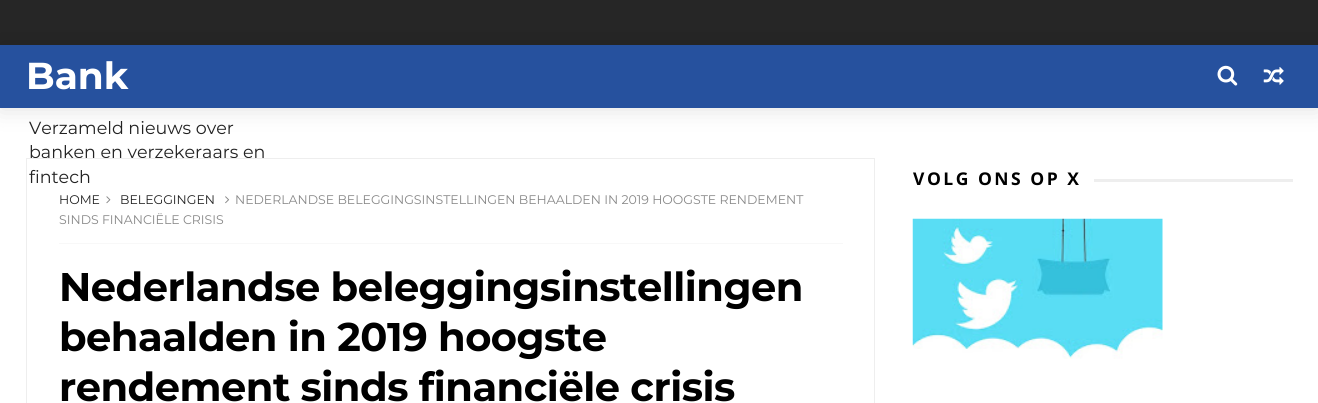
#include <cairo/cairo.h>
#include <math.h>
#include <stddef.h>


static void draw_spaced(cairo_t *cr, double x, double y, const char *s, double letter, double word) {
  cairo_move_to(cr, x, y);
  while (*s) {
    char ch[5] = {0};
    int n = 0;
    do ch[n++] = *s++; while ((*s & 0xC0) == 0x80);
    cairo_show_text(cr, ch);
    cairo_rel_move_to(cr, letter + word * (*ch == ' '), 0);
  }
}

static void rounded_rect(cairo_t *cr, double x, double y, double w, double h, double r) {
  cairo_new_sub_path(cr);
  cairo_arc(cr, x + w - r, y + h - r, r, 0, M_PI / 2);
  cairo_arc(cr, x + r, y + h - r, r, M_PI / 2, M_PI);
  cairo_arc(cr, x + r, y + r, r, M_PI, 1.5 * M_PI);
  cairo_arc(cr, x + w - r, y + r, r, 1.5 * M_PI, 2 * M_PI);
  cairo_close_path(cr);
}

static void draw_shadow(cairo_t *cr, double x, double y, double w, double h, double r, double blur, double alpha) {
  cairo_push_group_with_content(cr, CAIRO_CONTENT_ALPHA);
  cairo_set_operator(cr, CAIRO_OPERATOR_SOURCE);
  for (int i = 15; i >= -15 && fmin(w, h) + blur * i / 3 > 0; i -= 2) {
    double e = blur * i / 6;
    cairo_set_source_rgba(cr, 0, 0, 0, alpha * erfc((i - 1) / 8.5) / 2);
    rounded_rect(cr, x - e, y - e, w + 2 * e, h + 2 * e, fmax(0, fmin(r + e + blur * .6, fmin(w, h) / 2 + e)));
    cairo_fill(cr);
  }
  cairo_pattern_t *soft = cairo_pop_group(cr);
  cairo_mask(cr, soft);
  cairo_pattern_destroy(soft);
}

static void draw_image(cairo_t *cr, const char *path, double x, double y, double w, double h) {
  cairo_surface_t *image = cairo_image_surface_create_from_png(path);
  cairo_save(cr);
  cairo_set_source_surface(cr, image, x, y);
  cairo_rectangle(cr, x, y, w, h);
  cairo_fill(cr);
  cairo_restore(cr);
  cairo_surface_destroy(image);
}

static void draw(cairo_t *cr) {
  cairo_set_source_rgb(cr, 1, 1, 1);
  cairo_paint(cr);
  cairo_set_source_rgb(cr, 38 / 255.0, 38 / 255.0, 38 / 255.0);
  cairo_rectangle(cr, 0, 0, 1318, 45);
  cairo_fill(cr);
  cairo_set_source_rgb(cr, 0, 0, 0);
  draw_shadow(cr, 0, 46, 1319, 63, 0, 12.5, 0.12);
  cairo_set_source_rgb(cr, 38 / 255.0, 81 / 255.0, 158 / 255.0);
  cairo_rectangle(cr, 0, 45, 1318, 63);
  cairo_fill(cr);
  draw_image(cr, "images/1.png", 1217, 65, 21, 21);
  draw_image(cr, "images/2.png", 1263, 67, 21, 18);
  cairo_set_source_rgb(cr, 238 / 255.0, 238 / 255.0, 238 / 255.0);
  cairo_rectangle(cr, 1094, 179, 199, 3);
  cairo_fill(cr);
  draw_image(cr, "images/3.png", 912, 218, 251, 141);
  cairo_select_font_face(cr, "Montserrat", CAIRO_FONT_SLANT_NORMAL, CAIRO_FONT_WEIGHT_BOLD);
  cairo_set_font_size(cr, 37.5);
  cairo_set_source_rgb(cr, 1, 1, 1);
  cairo_move_to(cr, 26, 89);
  cairo_show_text(cr, "Bank");
  cairo_select_font_face(cr, "Montserrat", CAIRO_FONT_SLANT_NORMAL, CAIRO_FONT_WEIGHT_NORMAL);
  cairo_set_font_size(cr, 17.5);
  cairo_set_source_rgb(cr, 34 / 255.0, 34 / 255.0, 34 / 255.0);
  cairo_move_to(cr, 29, 134);
  cairo_show_text(cr, "Verzameld nieuws over");
  cairo_move_to(cr, 29, 158);
  cairo_show_text(cr, "banken en verzekeraars en");
  cairo_move_to(cr, 29, 183);
  cairo_show_text(cr, "fintech");
  cairo_select_font_face(cr, "Open Sans", CAIRO_FONT_SLANT_NORMAL, CAIRO_FONT_WEIGHT_BOLD);
  cairo_set_source_rgb(cr, 0, 0, 0);
  draw_spaced(cr, 913, 185, "VOLG ONS OP X", 2.5, 0);
  cairo_rectangle(cr, 26.5, 158.5, 848, 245);
  cairo_set_source_rgb(cr, 238 / 255.0, 238 / 255.0, 238 / 255.0);
  cairo_set_line_width(cr, 1);
  cairo_stroke(cr);
  cairo_select_font_face(cr, "Montserrat", CAIRO_FONT_SLANT_NORMAL, CAIRO_FONT_WEIGHT_NORMAL);
  cairo_set_font_size(cr, 12.5);
  cairo_set_source_rgb(cr, 34 / 255.0, 34 / 255.0, 34 / 255.0);
  cairo_move_to(cr, 59, 204);
  cairo_show_text(cr, "HOME");
  draw_image(cr, "images/4.png", 106, 196, 5, 8);
  cairo_move_to(cr, 120, 204);
  cairo_show_text(cr, "BELEGGINGEN");
  draw_image(cr, "images/5.png", 225, 196, 5, 8);
  cairo_set_source_rgb(cr, 136 / 255.0, 136 / 255.0, 136 / 255.0);
  cairo_move_to(cr, 235, 204);
  cairo_show_text(cr, "NEDERLANDSE BELEGGINGSINSTELLINGEN BEHAALDEN IN 2019 HOOGSTE RENDEMENT");
  cairo_move_to(cr, 59, 224);
  cairo_show_text(cr, "SINDS FINANCIËLE CRISIS");
  cairo_set_source_rgb(cr, 248 / 255.0, 248 / 255.0, 248 / 255.0);
  cairo_rectangle(cr, 59, 243, 784, 1);
  cairo_fill(cr);
  cairo_select_font_face(cr, "Montserrat", CAIRO_FONT_SLANT_NORMAL, CAIRO_FONT_WEIGHT_BOLD);
  cairo_set_font_size(cr, 40);
  cairo_set_source_rgb(cr, 0, 0, 0);
  draw_spaced(cr, 59, 301, "Nederlandse beleggingsinstellingen", -0.5, 0);
  draw_spaced(cr, 59, 351, "behaalden in 2019 hoogste", -0.5, 0);
  draw_spaced(cr, 59, 401, "rendement sinds financiële crisis", -0.5, 0);
}

int main(void) {
  cairo_surface_t *surface = cairo_image_surface_create(CAIRO_FORMAT_RGB24, 1318, 403);
  cairo_t *cr = cairo_create(surface);
  cairo_font_options_t *options = cairo_font_options_create();
  cairo_font_options_set_hint_metrics(options, CAIRO_HINT_METRICS_OFF);
  cairo_font_options_set_hint_style(options, CAIRO_HINT_STYLE_NONE);
  cairo_set_font_options(cr, options);
  cairo_set_miter_limit(cr, 4);
  draw(cr);
  cairo_surface_write_to_png(surface, "out.png");
  cairo_font_options_destroy(options);
  cairo_destroy(cr);
  cairo_surface_destroy(surface);
  return 0;
}
